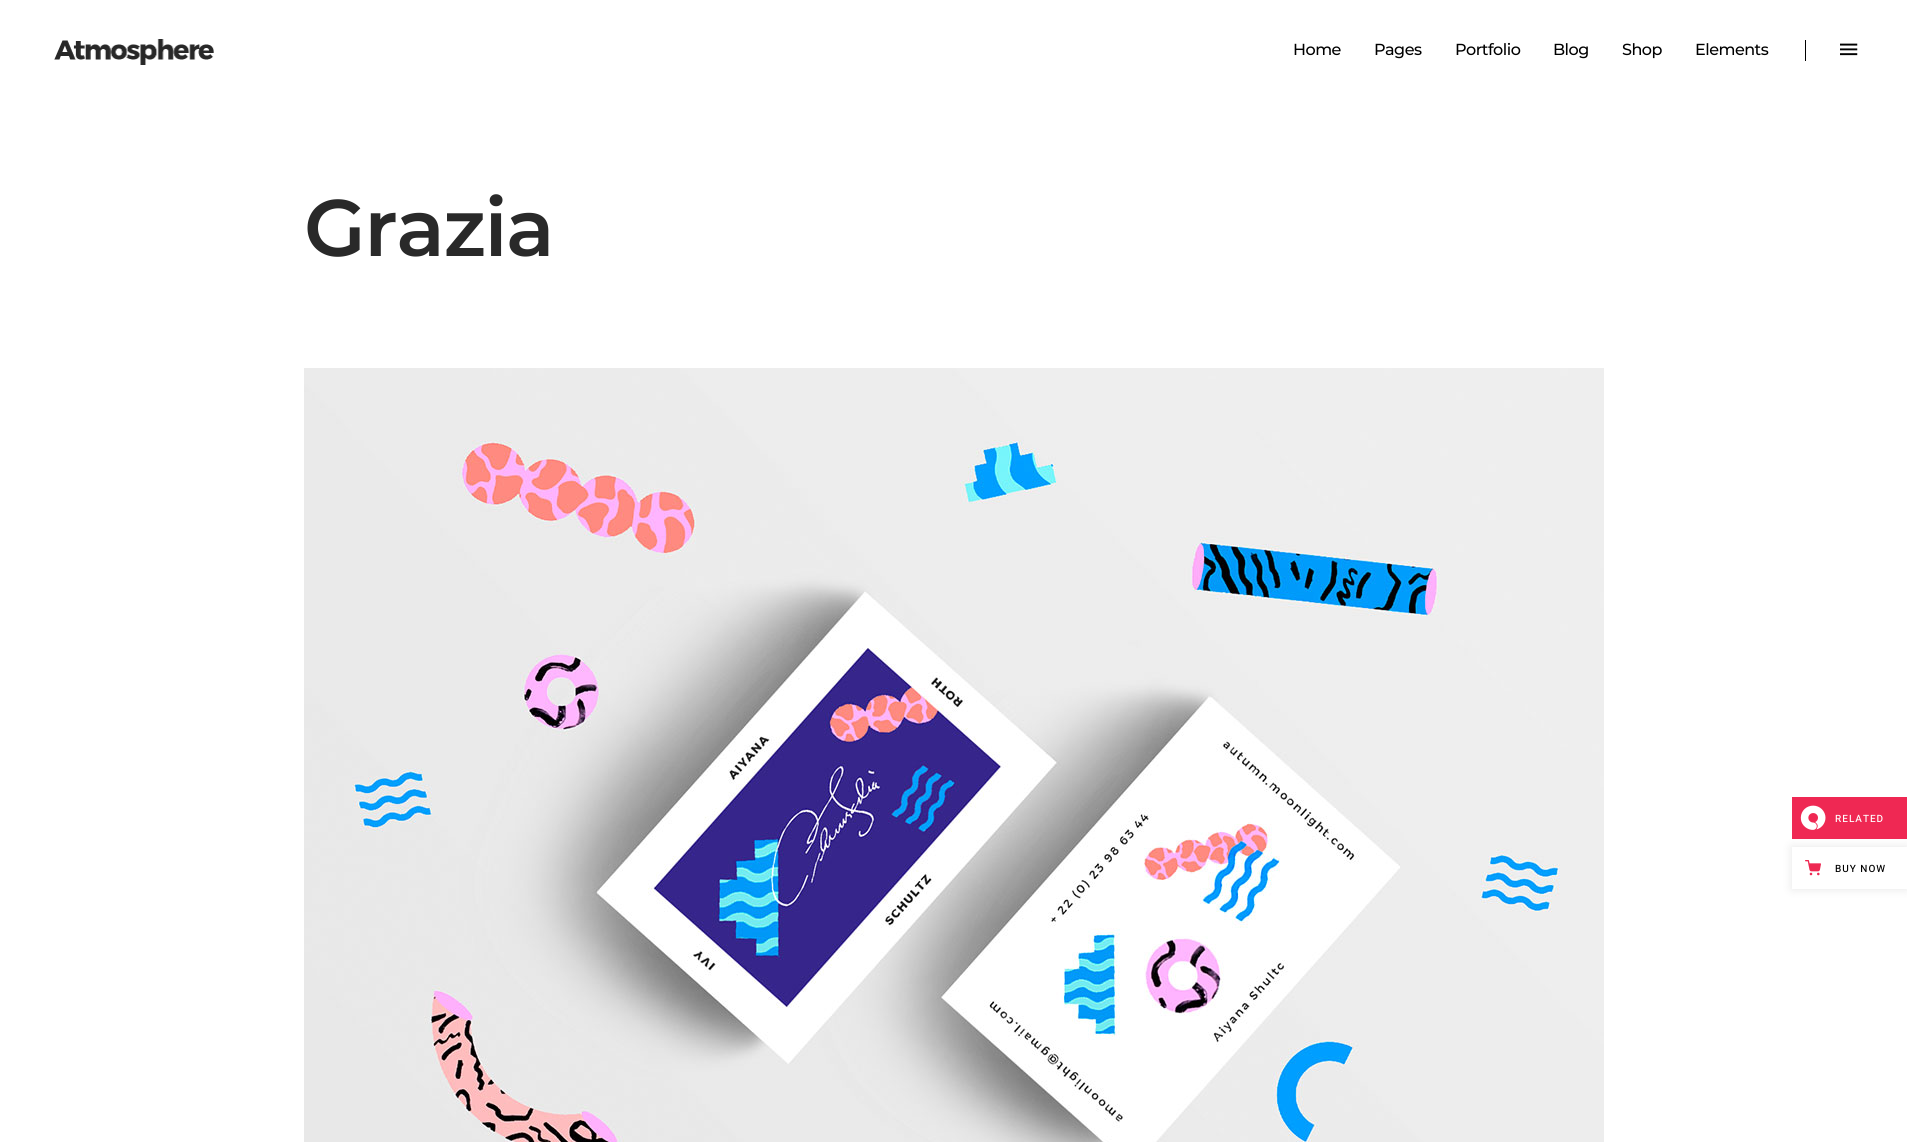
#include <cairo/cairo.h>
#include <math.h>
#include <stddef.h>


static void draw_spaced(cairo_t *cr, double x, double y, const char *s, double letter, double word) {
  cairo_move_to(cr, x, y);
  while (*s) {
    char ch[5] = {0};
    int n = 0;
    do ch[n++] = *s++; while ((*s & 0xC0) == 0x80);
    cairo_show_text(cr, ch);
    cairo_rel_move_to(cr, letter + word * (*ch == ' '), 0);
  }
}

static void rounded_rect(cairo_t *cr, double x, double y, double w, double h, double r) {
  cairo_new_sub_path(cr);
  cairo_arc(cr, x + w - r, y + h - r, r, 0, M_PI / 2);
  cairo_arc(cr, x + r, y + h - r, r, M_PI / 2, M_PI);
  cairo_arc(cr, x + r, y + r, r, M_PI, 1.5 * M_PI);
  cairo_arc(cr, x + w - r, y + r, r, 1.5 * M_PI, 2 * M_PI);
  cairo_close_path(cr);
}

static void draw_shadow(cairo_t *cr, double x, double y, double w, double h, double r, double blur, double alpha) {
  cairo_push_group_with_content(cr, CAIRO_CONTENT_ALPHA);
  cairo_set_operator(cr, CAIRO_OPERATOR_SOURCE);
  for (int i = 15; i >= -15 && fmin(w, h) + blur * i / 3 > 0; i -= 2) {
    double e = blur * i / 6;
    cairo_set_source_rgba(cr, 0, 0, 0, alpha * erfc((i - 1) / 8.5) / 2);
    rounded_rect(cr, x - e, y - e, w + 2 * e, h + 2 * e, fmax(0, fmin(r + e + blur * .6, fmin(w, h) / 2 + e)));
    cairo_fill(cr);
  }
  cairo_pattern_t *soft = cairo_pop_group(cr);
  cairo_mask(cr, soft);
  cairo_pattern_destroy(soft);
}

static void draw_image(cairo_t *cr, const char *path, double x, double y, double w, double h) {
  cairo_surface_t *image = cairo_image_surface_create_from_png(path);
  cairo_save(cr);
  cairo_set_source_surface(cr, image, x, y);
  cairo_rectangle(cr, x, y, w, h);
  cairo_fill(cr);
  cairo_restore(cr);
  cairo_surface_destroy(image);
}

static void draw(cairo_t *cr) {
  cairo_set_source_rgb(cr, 1, 1, 1);
  cairo_paint(cr);
  draw_image(cr, "images/1.png", 54, 39, 160, 26);
  cairo_set_source_rgb(cr, 0, 0, 0);
  cairo_rectangle(cr, 1805, 40, 1, 21);
  cairo_fill(cr);
  draw_image(cr, "images/2.png", 1840, 43, 18, 13);
  draw_image(cr, "images/3.png", 304, 368, 1300, 774);
  cairo_set_source_rgb(cr, 239 / 255.0, 40 / 255.0, 83 / 255.0);
  cairo_rectangle(cr, 1792, 797, 115, 42);
  cairo_fill(cr);
  draw_image(cr, "images/4.png", 1800, 805, 26, 25);
  cairo_save(cr);
  cairo_set_fill_rule(cr, CAIRO_FILL_RULE_EVEN_ODD);
  cairo_new_path(cr);
  cairo_move_to(cr, 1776, 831);
  cairo_line_to(cr, 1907, 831);
  cairo_line_to(cr, 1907, 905);
  cairo_line_to(cr, 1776, 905);
  cairo_close_path(cr);
  cairo_move_to(cr, 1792, 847);
  cairo_line_to(cr, 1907, 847);
  cairo_line_to(cr, 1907, 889);
  cairo_line_to(cr, 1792, 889);
  cairo_close_path(cr);
  cairo_clip(cr);
  cairo_set_source_rgb(cr, 0, 0, 0);
  draw_shadow(cr, 1792, 847, 115, 42, 0, 5, 0.1);
  cairo_restore(cr);
  draw_image(cr, "images/5.png", 1805, 860, 16, 16);
  cairo_select_font_face(cr, "Montserrat Medium", CAIRO_FONT_SLANT_NORMAL, CAIRO_FONT_WEIGHT_NORMAL);
  cairo_set_font_size(cr, 16);
  cairo_set_source_rgb(cr, 0, 0, 0);
  draw_spaced(cr, 1293, 55, "Home", -0.5, 0);
  draw_spaced(cr, 1374, 55, "Pages", -0.5, 0);
  draw_spaced(cr, 1455, 55, "Portfolio", -0.5, 0);
  draw_spaced(cr, 1553, 55, "Blog", -0.5, 0);
  draw_spaced(cr, 1622, 55, "Shop", -0.5, 0);
  draw_spaced(cr, 1695, 55, "Elements", -0.5, 0);
  cairo_select_font_face(cr, "Montserrat SemiBold", CAIRO_FONT_SLANT_NORMAL, CAIRO_FONT_WEIGHT_NORMAL);
  cairo_set_font_size(cr, 80);
  cairo_set_source_rgb(cr, 41 / 255.0, 41 / 255.0, 41 / 255.0);
  draw_spaced(cr, 304, 256, "Grazia", -1.5, 0);
  cairo_select_font_face(cr, "Heebo Medium", CAIRO_FONT_SLANT_NORMAL, CAIRO_FONT_WEIGHT_NORMAL);
  cairo_set_font_size(cr, 10);
  cairo_set_source_rgb(cr, 1, 1, 1);
  draw_spaced(cr, 1835, 822, "RELATED", 1, 0);
  cairo_set_source_rgb(cr, 0, 0, 0);
  draw_spaced(cr, 1835, 872, "BUY NOW", 1, 0);
}

int main(void) {
  cairo_surface_t *surface = cairo_image_surface_create(CAIRO_FORMAT_RGB24, 1907, 1142);
  cairo_t *cr = cairo_create(surface);
  cairo_font_options_t *options = cairo_font_options_create();
  cairo_font_options_set_hint_metrics(options, CAIRO_HINT_METRICS_OFF);
  cairo_font_options_set_hint_style(options, CAIRO_HINT_STYLE_NONE);
  cairo_set_font_options(cr, options);
  cairo_set_miter_limit(cr, 4);
  draw(cr);
  cairo_surface_write_to_png(surface, "out.png");
  cairo_font_options_destroy(options);
  cairo_destroy(cr);
  cairo_surface_destroy(surface);
  return 0;
}
